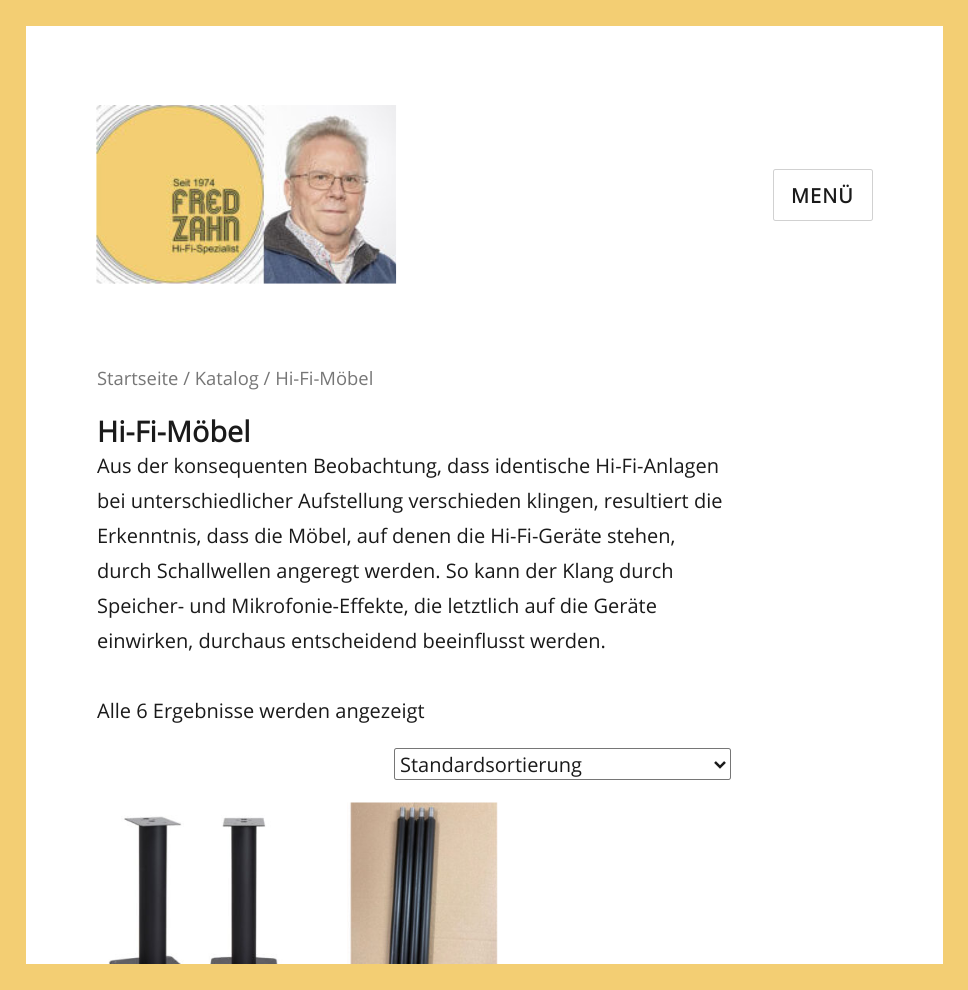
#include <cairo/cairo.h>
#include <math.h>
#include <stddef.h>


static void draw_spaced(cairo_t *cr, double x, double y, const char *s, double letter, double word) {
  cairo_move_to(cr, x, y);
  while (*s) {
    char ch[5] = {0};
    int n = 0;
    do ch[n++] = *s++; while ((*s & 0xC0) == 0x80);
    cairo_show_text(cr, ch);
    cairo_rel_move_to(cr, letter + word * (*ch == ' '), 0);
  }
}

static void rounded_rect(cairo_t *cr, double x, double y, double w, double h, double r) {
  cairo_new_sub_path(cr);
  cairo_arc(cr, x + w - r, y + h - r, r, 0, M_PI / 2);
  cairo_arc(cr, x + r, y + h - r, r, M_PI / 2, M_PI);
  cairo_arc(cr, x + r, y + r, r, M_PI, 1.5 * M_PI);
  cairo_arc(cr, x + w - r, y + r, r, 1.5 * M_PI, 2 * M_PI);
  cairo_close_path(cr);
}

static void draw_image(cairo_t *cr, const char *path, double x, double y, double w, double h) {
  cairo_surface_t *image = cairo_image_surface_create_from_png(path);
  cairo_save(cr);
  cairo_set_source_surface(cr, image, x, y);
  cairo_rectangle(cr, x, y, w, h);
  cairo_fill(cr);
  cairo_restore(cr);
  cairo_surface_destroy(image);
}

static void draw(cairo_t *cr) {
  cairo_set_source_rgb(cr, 243 / 255.0, 206 / 255.0, 115 / 255.0);
  cairo_paint(cr);
  cairo_set_source_rgb(cr, 1, 1, 1);
  cairo_rectangle(cr, 26, 26, 917, 938);
  cairo_fill(cr);
  draw_image(cr, "images/1.png", 96, 105, 301, 179);
  rounded_rect(cr, 773.5, 169.5, 99, 51, 2);
  cairo_set_source_rgb(cr, 209 / 255.0, 209 / 255.0, 209 / 255.0);
  cairo_set_line_width(cr, 1);
  cairo_stroke(cr);
  rounded_rect(cr, 394.5, 748.5, 336, 31, 2);
  cairo_set_source_rgb(cr, 118 / 255.0, 118 / 255.0, 118 / 255.0);
  cairo_stroke(cr);
  cairo_new_path(cr);
  cairo_move_to(cr, 715, 762);
  cairo_line_to(cr, 720, 767);
  cairo_line_to(cr, 725, 762);
  cairo_set_source_rgb(cr, 26 / 255.0, 26 / 255.0, 26 / 255.0);
  cairo_set_line_width(cr, 2.5);
  cairo_stroke(cr);
  draw_image(cr, "images/2.png", 108, 815, 175, 149);
  draw_image(cr, "images/3.png", 347, 802, 151, 162);
  cairo_select_font_face(cr, "Open Sans", CAIRO_FONT_SLANT_NORMAL, CAIRO_FONT_WEIGHT_BOLD);
  cairo_set_font_size(cr, 20);
  draw_spaced(cr, 791, 203, "MENÜ", 1, 0);
  cairo_select_font_face(cr, "Open Sans", CAIRO_FONT_SLANT_NORMAL, CAIRO_FONT_WEIGHT_NORMAL);
  cairo_set_font_size(cr, 18.4);
  cairo_set_source_rgb(cr, 118 / 255.0, 118 / 255.0, 118 / 255.0);
  cairo_move_to(cr, 97, 385);
  cairo_show_text(cr, "Startseite / Katalog / Hi-Fi-Möbel");
  cairo_select_font_face(cr, "Open Sans", CAIRO_FONT_SLANT_NORMAL, CAIRO_FONT_WEIGHT_BOLD);
  cairo_set_font_size(cr, 28.75);
  cairo_set_source_rgb(cr, 26 / 255.0, 26 / 255.0, 26 / 255.0);
  cairo_move_to(cr, 97, 442);
  cairo_show_text(cr, "Hi-Fi-Möbel");
  cairo_select_font_face(cr, "Open Sans", CAIRO_FONT_SLANT_NORMAL, CAIRO_FONT_WEIGHT_NORMAL);
  cairo_set_font_size(cr, 20);
  cairo_move_to(cr, 97, 473);
  cairo_show_text(cr, "Aus der konsequenten Beobachtung, dass identische Hi-Fi-Anlagen");
  cairo_move_to(cr, 97, 508);
  cairo_show_text(cr, "bei unterschiedlicher Aufstellung verschieden klingen, resultiert die");
  cairo_move_to(cr, 97, 543);
  cairo_show_text(cr, "Erkenntnis, dass die Möbel, auf denen die Hi-Fi-Geräte stehen,");
  cairo_move_to(cr, 97, 578);
  cairo_show_text(cr, "durch Schallwellen angeregt werden. So kann der Klang durch");
  cairo_move_to(cr, 97, 613);
  cairo_show_text(cr, "Speicher- und Mikrofonie-Effekte, die letztlich auf die Geräte");
  cairo_move_to(cr, 97, 648);
  cairo_show_text(cr, "einwirken, durchaus entscheidend beeinflusst werden.");
  cairo_move_to(cr, 97, 718);
  cairo_show_text(cr, "Alle 6 Ergebnisse werden angezeigt");
  cairo_move_to(cr, 400, 772);
  cairo_show_text(cr, "Standardsortierung");
}

int main(void) {
  cairo_surface_t *surface = cairo_image_surface_create(CAIRO_FORMAT_RGB24, 968, 990);
  cairo_t *cr = cairo_create(surface);
  cairo_font_options_t *options = cairo_font_options_create();
  cairo_font_options_set_hint_metrics(options, CAIRO_HINT_METRICS_OFF);
  cairo_font_options_set_hint_style(options, CAIRO_HINT_STYLE_NONE);
  cairo_set_font_options(cr, options);
  cairo_set_miter_limit(cr, 4);
  draw(cr);
  cairo_surface_write_to_png(surface, "out.png");
  cairo_font_options_destroy(options);
  cairo_destroy(cr);
  cairo_surface_destroy(surface);
  return 0;
}
